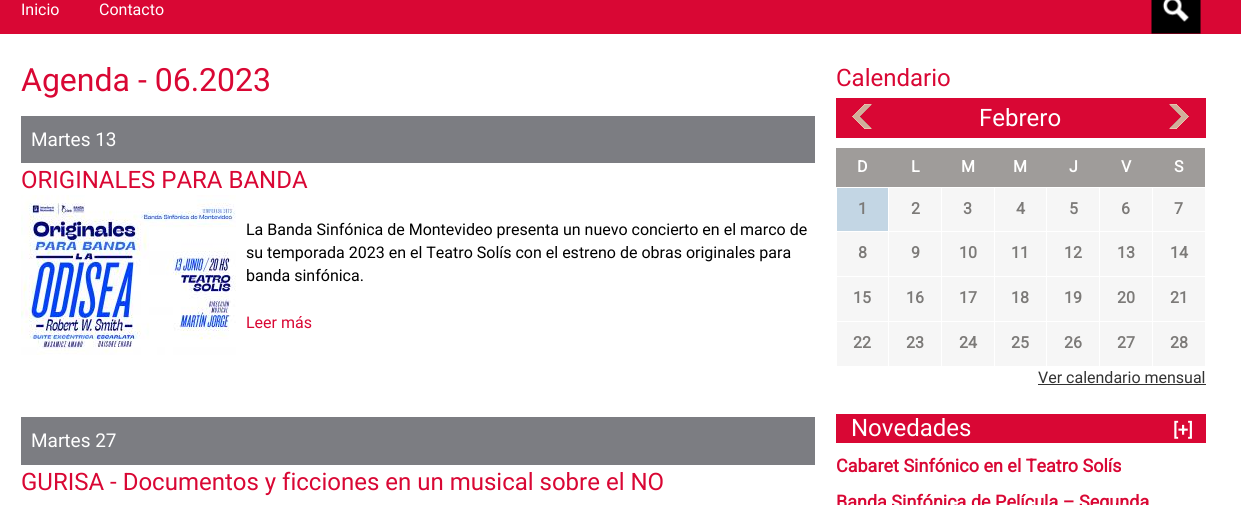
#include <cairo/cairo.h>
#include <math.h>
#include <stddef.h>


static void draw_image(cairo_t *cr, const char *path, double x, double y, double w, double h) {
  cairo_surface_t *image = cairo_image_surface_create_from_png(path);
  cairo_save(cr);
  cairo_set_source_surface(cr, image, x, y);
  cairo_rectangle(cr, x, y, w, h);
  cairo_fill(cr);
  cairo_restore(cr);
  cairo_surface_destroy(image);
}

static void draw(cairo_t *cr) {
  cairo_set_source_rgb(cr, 1, 1, 1);
  cairo_paint(cr);
  cairo_set_source_rgb(cr, 217 / 255.0, 7 / 255.0, 52 / 255.0);
  cairo_rectangle(cr, 0, 0, 1241, 34);
  cairo_fill(cr);
  draw_image(cr, "images/1.png", 1151, 0, 50, 34);
  cairo_set_source_rgb(cr, 124 / 255.0, 125 / 255.0, 130 / 255.0);
  cairo_rectangle(cr, 21, 116, 794, 47);
  cairo_fill(cr);
  draw_image(cr, "images/2.png", 21, 195, 215, 160);
  cairo_rectangle(cr, 21, 417, 794, 48);
  cairo_fill(cr);
  cairo_set_source_rgb(cr, 217 / 255.0, 7 / 255.0, 52 / 255.0);
  cairo_rectangle(cr, 836, 98, 370, 40);
  cairo_fill(cr);
  draw_image(cr, "images/3.png", 852, 104, 20, 25);
  draw_image(cr, "images/4.png", 1169, 104, 20, 25);
  cairo_set_source_rgb(cr, 159 / 255.0, 156 / 255.0, 154 / 255.0);
  cairo_rectangle(cr, 836, 148, 369, 39);
  cairo_fill(cr);
  cairo_set_source_rgb(cr, 195 / 255.0, 214 / 255.0, 228 / 255.0);
  cairo_rectangle(cr, 837, 188, 51, 43);
  cairo_fill(cr);
  cairo_set_source_rgb(cr, 246 / 255.0, 246 / 255.0, 246 / 255.0);
  cairo_rectangle(cr, 889, 188, 52, 43);
  cairo_fill(cr);
  cairo_rectangle(cr, 942, 188, 52, 43);
  cairo_fill(cr);
  cairo_rectangle(cr, 995, 188, 51, 43);
  cairo_fill(cr);
  cairo_rectangle(cr, 1047, 188, 52, 43);
  cairo_fill(cr);
  cairo_rectangle(cr, 1100, 188, 52, 43);
  cairo_fill(cr);
  cairo_rectangle(cr, 1153, 188, 52, 43);
  cairo_fill(cr);
  cairo_rectangle(cr, 837, 232, 51, 44);
  cairo_fill(cr);
  cairo_rectangle(cr, 889, 232, 52, 44);
  cairo_fill(cr);
  cairo_rectangle(cr, 942, 232, 52, 44);
  cairo_fill(cr);
  cairo_rectangle(cr, 995, 232, 51, 44);
  cairo_fill(cr);
  cairo_rectangle(cr, 1047, 232, 52, 44);
  cairo_fill(cr);
  cairo_rectangle(cr, 1100, 232, 52, 44);
  cairo_fill(cr);
  cairo_rectangle(cr, 1153, 232, 52, 44);
  cairo_fill(cr);
  cairo_rectangle(cr, 837, 277, 51, 44);
  cairo_fill(cr);
  cairo_rectangle(cr, 889, 277, 52, 44);
  cairo_fill(cr);
  cairo_rectangle(cr, 942, 277, 52, 44);
  cairo_fill(cr);
  cairo_rectangle(cr, 995, 277, 51, 44);
  cairo_fill(cr);
  cairo_rectangle(cr, 1047, 277, 52, 44);
  cairo_fill(cr);
  cairo_rectangle(cr, 1100, 277, 52, 44);
  cairo_fill(cr);
  cairo_rectangle(cr, 1153, 277, 52, 44);
  cairo_fill(cr);
  cairo_rectangle(cr, 837, 322, 51, 44);
  cairo_fill(cr);
  cairo_rectangle(cr, 889, 322, 52, 44);
  cairo_fill(cr);
  cairo_rectangle(cr, 942, 322, 52, 44);
  cairo_fill(cr);
  cairo_rectangle(cr, 995, 322, 51, 44);
  cairo_fill(cr);
  cairo_rectangle(cr, 1047, 322, 52, 44);
  cairo_fill(cr);
  cairo_rectangle(cr, 1100, 322, 52, 44);
  cairo_fill(cr);
  cairo_rectangle(cr, 1153, 322, 52, 44);
  cairo_fill(cr);
  cairo_set_source_rgb(cr, 51 / 255.0, 51 / 255.0, 51 / 255.0);
  cairo_rectangle(cr, 1038, 384, 168, 1);
  cairo_fill(cr);
  cairo_set_source_rgb(cr, 217 / 255.0, 7 / 255.0, 52 / 255.0);
  cairo_rectangle(cr, 836, 414, 370, 29);
  cairo_fill(cr);
  cairo_select_font_face(cr, "Roboto", CAIRO_FONT_SLANT_NORMAL, CAIRO_FONT_WEIGHT_NORMAL);
  cairo_set_font_size(cr, 16);
  cairo_set_source_rgb(cr, 1, 1, 1);
  cairo_move_to(cr, 21, 15);
  cairo_show_text(cr, "Inicio");
  cairo_move_to(cr, 99, 15);
  cairo_show_text(cr, "Contacto");
  cairo_set_font_size(cr, 32);
  cairo_set_source_rgb(cr, 217 / 255.0, 7 / 255.0, 52 / 255.0);
  cairo_move_to(cr, 21, 91);
  cairo_show_text(cr, "Agenda - 06.2023");
  cairo_set_font_size(cr, 19);
  cairo_set_source_rgb(cr, 1, 1, 1);
  cairo_move_to(cr, 31, 146);
  cairo_show_text(cr, "Martes 13");
  cairo_set_font_size(cr, 24);
  cairo_set_source_rgb(cr, 217 / 255.0, 7 / 255.0, 52 / 255.0);
  cairo_move_to(cr, 21, 188);
  cairo_show_text(cr, "ORIGINALES PARA BANDA");
  cairo_set_font_size(cr, 16);
  cairo_set_source_rgb(cr, 0, 0, 0);
  cairo_move_to(cr, 246, 235);
  cairo_show_text(cr, "La Banda Sinfónica de Montevideo presenta un nuevo concierto en el marco de");
  cairo_move_to(cr, 246, 258);
  cairo_show_text(cr, "su temporada 2023 en el Teatro Solís con el estreno de obras originales para");
  cairo_move_to(cr, 246, 281);
  cairo_show_text(cr, "banda sinfónica.");
  cairo_set_source_rgb(cr, 217 / 255.0, 7 / 255.0, 52 / 255.0);
  cairo_move_to(cr, 246, 328);
  cairo_show_text(cr, "Leer más");
  cairo_set_font_size(cr, 19);
  cairo_set_source_rgb(cr, 1, 1, 1);
  cairo_move_to(cr, 31, 447);
  cairo_show_text(cr, "Martes 27");
  cairo_set_font_size(cr, 24);
  cairo_set_source_rgb(cr, 217 / 255.0, 7 / 255.0, 52 / 255.0);
  cairo_move_to(cr, 21, 490);
  cairo_show_text(cr, "GURISA - Documentos y ficciones en un musical sobre el NO");
  cairo_move_to(cr, 836, 86);
  cairo_show_text(cr, "Calendario");
  cairo_set_source_rgb(cr, 1, 1, 1);
  cairo_move_to(cr, 979, 126);
  cairo_show_text(cr, "Febrero");
  cairo_select_font_face(cr, "Roboto", CAIRO_FONT_SLANT_NORMAL, CAIRO_FONT_WEIGHT_BOLD);
  cairo_set_font_size(cr, 16);
  cairo_move_to(cr, 857, 172);
  cairo_show_text(cr, "D");
  cairo_move_to(cr, 911, 172);
  cairo_show_text(cr, "L");
  cairo_move_to(cr, 961, 172);
  cairo_show_text(cr, "M");
  cairo_move_to(cr, 1013, 172);
  cairo_show_text(cr, "M");
  cairo_move_to(cr, 1069, 172);
  cairo_show_text(cr, "J");
  cairo_move_to(cr, 1121, 172);
  cairo_show_text(cr, "V");
  cairo_move_to(cr, 1174, 172);
  cairo_show_text(cr, "S");
  cairo_set_source_rgb(cr, 124 / 255.0, 122 / 255.0, 120 / 255.0);
  cairo_move_to(cr, 858, 214);
  cairo_show_text(cr, "1");
  cairo_move_to(cr, 911, 214);
  cairo_show_text(cr, "2");
  cairo_move_to(cr, 963, 214);
  cairo_show_text(cr, "3");
  cairo_move_to(cr, 1016, 214);
  cairo_show_text(cr, "4");
  cairo_move_to(cr, 1069, 214);
  cairo_show_text(cr, "5");
  cairo_move_to(cr, 1121, 214);
  cairo_show_text(cr, "6");
  cairo_move_to(cr, 1174, 214);
  cairo_show_text(cr, "7");
  cairo_move_to(cr, 858, 258);
  cairo_show_text(cr, "8");
  cairo_move_to(cr, 911, 258);
  cairo_show_text(cr, "9");
  cairo_move_to(cr, 959, 258);
  cairo_show_text(cr, "10");
  cairo_move_to(cr, 1011, 258);
  cairo_show_text(cr, "11");
  cairo_move_to(cr, 1064, 258);
  cairo_show_text(cr, "12");
  cairo_move_to(cr, 1117, 258);
  cairo_show_text(cr, "13");
  cairo_move_to(cr, 1170, 258);
  cairo_show_text(cr, "14");
  cairo_move_to(cr, 853, 303);
  cairo_show_text(cr, "15");
  cairo_move_to(cr, 906, 303);
  cairo_show_text(cr, "16");
  cairo_move_to(cr, 959, 303);
  cairo_show_text(cr, "17");
  cairo_move_to(cr, 1011, 303);
  cairo_show_text(cr, "18");
  cairo_move_to(cr, 1064, 303);
  cairo_show_text(cr, "19");
  cairo_move_to(cr, 1117, 303);
  cairo_show_text(cr, "20");
  cairo_move_to(cr, 1170, 303);
  cairo_show_text(cr, "21");
  cairo_move_to(cr, 853, 348);
  cairo_show_text(cr, "22");
  cairo_move_to(cr, 906, 348);
  cairo_show_text(cr, "23");
  cairo_move_to(cr, 959, 348);
  cairo_show_text(cr, "24");
  cairo_move_to(cr, 1011, 348);
  cairo_show_text(cr, "25");
  cairo_move_to(cr, 1064, 348);
  cairo_show_text(cr, "26");
  cairo_move_to(cr, 1117, 348);
  cairo_show_text(cr, "27");
  cairo_move_to(cr, 1170, 348);
  cairo_show_text(cr, "28");
  cairo_select_font_face(cr, "Roboto", CAIRO_FONT_SLANT_NORMAL, CAIRO_FONT_WEIGHT_NORMAL);
  cairo_set_source_rgb(cr, 51 / 255.0, 51 / 255.0, 51 / 255.0);
  cairo_move_to(cr, 1038, 383);
  cairo_show_text(cr, "Ver calendario mensual");
  cairo_set_font_size(cr, 24);
  cairo_set_source_rgb(cr, 1, 1, 1);
  cairo_move_to(cr, 851, 436);
  cairo_show_text(cr, "Novedades");
  cairo_select_font_face(cr, "Roboto", CAIRO_FONT_SLANT_NORMAL, CAIRO_FONT_WEIGHT_BOLD);
  cairo_set_font_size(cr, 18);
  cairo_move_to(cr, 1173, 436);
  cairo_show_text(cr, "[+]");
  cairo_set_source_rgb(cr, 217 / 255.0, 7 / 255.0, 52 / 255.0);
  cairo_move_to(cr, 836, 472);
  cairo_show_text(cr, "Cabaret Sinfónico en el Teatro Solís");
  cairo_move_to(cr, 836, 508);
  cairo_show_text(cr, "Banda Sinfónica de Película – Segunda");
}

int main(void) {
  cairo_surface_t *surface = cairo_image_surface_create(CAIRO_FORMAT_RGB24, 1241, 505);
  cairo_t *cr = cairo_create(surface);
  cairo_font_options_t *options = cairo_font_options_create();
  cairo_font_options_set_hint_metrics(options, CAIRO_HINT_METRICS_OFF);
  cairo_font_options_set_hint_style(options, CAIRO_HINT_STYLE_NONE);
  cairo_set_font_options(cr, options);
  cairo_set_miter_limit(cr, 4);
  draw(cr);
  cairo_surface_write_to_png(surface, "out.png");
  cairo_font_options_destroy(options);
  cairo_destroy(cr);
  cairo_surface_destroy(surface);
  return 0;
}
